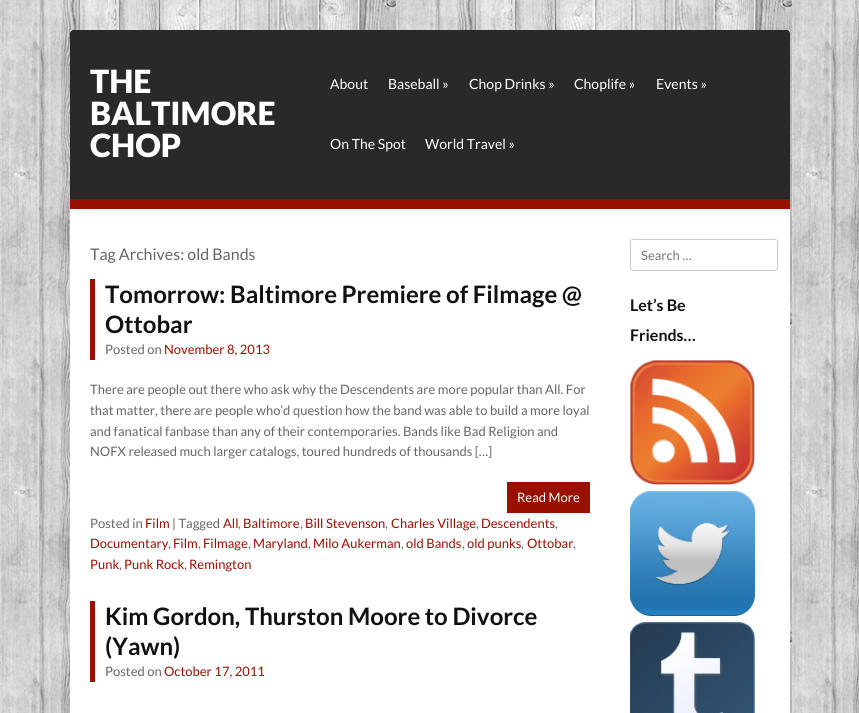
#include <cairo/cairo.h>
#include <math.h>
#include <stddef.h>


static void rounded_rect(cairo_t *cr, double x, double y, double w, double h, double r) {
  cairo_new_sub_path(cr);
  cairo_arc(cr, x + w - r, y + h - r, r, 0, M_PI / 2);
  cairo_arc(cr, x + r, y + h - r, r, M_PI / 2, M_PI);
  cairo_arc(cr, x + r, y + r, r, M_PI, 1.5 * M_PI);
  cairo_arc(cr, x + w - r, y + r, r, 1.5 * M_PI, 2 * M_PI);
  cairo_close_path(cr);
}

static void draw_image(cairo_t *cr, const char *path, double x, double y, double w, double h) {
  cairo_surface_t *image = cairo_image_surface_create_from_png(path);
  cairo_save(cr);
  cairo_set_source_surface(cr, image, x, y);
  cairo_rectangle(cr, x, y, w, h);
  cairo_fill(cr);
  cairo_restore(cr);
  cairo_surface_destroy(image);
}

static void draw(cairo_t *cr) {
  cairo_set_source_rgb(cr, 1, 1, 1);
  cairo_paint(cr);
  draw_image(cr, "images/1.png", 0, 0, 859, 713);
  cairo_set_source_rgb(cr, 1, 1, 1);
  cairo_rectangle(cr, 70, 30, 720, 683);
  cairo_fill(cr);
  cairo_set_source_rgb(cr, 41 / 255.0, 41 / 255.0, 41 / 255.0);
  cairo_new_path(cr);
  cairo_move_to(cr, 73, 30);
  cairo_line_to(cr, 787, 30);
  cairo_curve_to(cr, 788.5, 30, 790, 31.5, 790, 33);
  cairo_line_to(cr, 790, 209);
  cairo_line_to(cr, 70, 209);
  cairo_line_to(cr, 70, 33);
  cairo_curve_to(cr, 70, 31.5, 71.5, 30, 73, 30);
  cairo_close_path(cr);
  cairo_fill(cr);
  cairo_set_source_rgb(cr, 153 / 255.0, 15 / 255.0, 0);
  cairo_rectangle(cr, 70, 199, 720, 10);
  cairo_fill(cr);
  cairo_rectangle(cr, 90, 279, 5, 81);
  cairo_fill(cr);
  cairo_rectangle(cr, 507, 482, 83, 31);
  cairo_fill(cr);
  cairo_rectangle(cr, 90, 601, 5, 81);
  cairo_fill(cr);
  rounded_rect(cr, 630.5, 239.5, 147, 31, 2.5);
  cairo_set_source_rgb(cr, 204 / 255.0, 204 / 255.0, 204 / 255.0);
  cairo_set_line_width(cr, 1);
  cairo_stroke(cr);
  draw_image(cr, "images/2.png", 630, 360, 125, 125);
  draw_image(cr, "images/3.png", 630, 491, 125, 125);
  draw_image(cr, "images/4.png", 630, 622, 125, 91);
  cairo_select_font_face(cr, "Lato Black", CAIRO_FONT_SLANT_NORMAL, CAIRO_FONT_WEIGHT_NORMAL);
  cairo_set_font_size(cr, 32);
  cairo_set_source_rgb(cr, 1, 1, 1);
  cairo_move_to(cr, 90, 93);
  cairo_show_text(cr, "THE");
  cairo_move_to(cr, 90, 125);
  cairo_show_text(cr, "BALTIMORE");
  cairo_move_to(cr, 90, 157);
  cairo_show_text(cr, "CHOP");
  cairo_select_font_face(cr, "Lato", CAIRO_FONT_SLANT_NORMAL, CAIRO_FONT_WEIGHT_NORMAL);
  cairo_set_font_size(cr, 14);
  cairo_move_to(cr, 330, 89);
  cairo_show_text(cr, "About");
  cairo_move_to(cr, 388, 89);
  cairo_show_text(cr, "Baseball »");
  cairo_move_to(cr, 469, 89);
  cairo_show_text(cr, "Chop Drinks »");
  cairo_move_to(cr, 574, 89);
  cairo_show_text(cr, "Choplife »");
  cairo_move_to(cr, 656, 89);
  cairo_show_text(cr, "Events »");
  cairo_move_to(cr, 330, 149);
  cairo_show_text(cr, "On The Spot");
  cairo_move_to(cr, 425, 149);
  cairo_show_text(cr, "World Travel »");
  cairo_set_font_size(cr, 16);
  cairo_set_source_rgb(cr, 102 / 255.0, 102 / 255.0, 102 / 255.0);
  cairo_move_to(cr, 90, 260);
  cairo_show_text(cr, "Tag Archives: old Bands");
  cairo_select_font_face(cr, "Lato", CAIRO_FONT_SLANT_NORMAL, CAIRO_FONT_WEIGHT_BOLD);
  cairo_set_font_size(cr, 24);
  cairo_set_source_rgb(cr, 17 / 255.0, 17 / 255.0, 17 / 255.0);
  cairo_move_to(cr, 105, 303);
  cairo_show_text(cr, "Tomorrow: Baltimore Premiere of Filmage @");
  cairo_move_to(cr, 105, 333);
  cairo_show_text(cr, "Ottobar");
  cairo_select_font_face(cr, "Lato", CAIRO_FONT_SLANT_NORMAL, CAIRO_FONT_WEIGHT_NORMAL);
  cairo_set_font_size(cr, 13);
  cairo_set_source_rgb(cr, 102 / 255.0, 102 / 255.0, 102 / 255.0);
  cairo_move_to(cr, 105, 354);
  cairo_show_text(cr, "Posted on");
  cairo_set_source_rgb(cr, 153 / 255.0, 15 / 255.0, 0);
  cairo_move_to(cr, 164, 354);
  cairo_show_text(cr, "November 8, 2013");
  cairo_set_source_rgb(cr, 102 / 255.0, 102 / 255.0, 102 / 255.0);
  cairo_move_to(cr, 90, 394);
  cairo_show_text(cr, "There are people out there who ask why the Descendents are more popular than All. For");
  cairo_move_to(cr, 90, 415);
  cairo_show_text(cr, "that matter, there are people who’d question how the band was able to build a more loyal");
  cairo_move_to(cr, 90, 436);
  cairo_show_text(cr, "and fanatical fanbase than any of their contemporaries. Bands like Bad Religion and");
  cairo_move_to(cr, 90, 456);
  cairo_show_text(cr, "NOFX released much larger catalogs, toured hundreds of thousands […]");
  cairo_set_source_rgb(cr, 1, 1, 1);
  cairo_move_to(cr, 517, 502);
  cairo_show_text(cr, "Read More");
  cairo_set_source_rgb(cr, 102 / 255.0, 102 / 255.0, 102 / 255.0);
  cairo_move_to(cr, 90, 528);
  cairo_show_text(cr, "Posted in");
  cairo_set_source_rgb(cr, 153 / 255.0, 15 / 255.0, 0);
  cairo_move_to(cr, 145, 528);
  cairo_show_text(cr, "Film");
  cairo_set_source_rgb(cr, 102 / 255.0, 102 / 255.0, 102 / 255.0);
  cairo_move_to(cr, 172, 528);
  cairo_show_text(cr, "| Tagged");
  cairo_set_source_rgb(cr, 153 / 255.0, 15 / 255.0, 0);
  cairo_move_to(cr, 223, 528);
  cairo_show_text(cr, "All");
  cairo_set_source_rgb(cr, 102 / 255.0, 102 / 255.0, 102 / 255.0);
  cairo_move_to(cr, 238, 528);
  cairo_show_text(cr, ",");
  cairo_set_source_rgb(cr, 153 / 255.0, 15 / 255.0, 0);
  cairo_move_to(cr, 243, 528);
  cairo_show_text(cr, "Baltimore");
  cairo_set_source_rgb(cr, 102 / 255.0, 102 / 255.0, 102 / 255.0);
  cairo_move_to(cr, 300, 528);
  cairo_show_text(cr, ",");
  cairo_set_source_rgb(cr, 153 / 255.0, 15 / 255.0, 0);
  cairo_move_to(cr, 305, 528);
  cairo_show_text(cr, "Bill Stevenson");
  cairo_set_source_rgb(cr, 102 / 255.0, 102 / 255.0, 102 / 255.0);
  cairo_move_to(cr, 385, 528);
  cairo_show_text(cr, ",");
  cairo_set_source_rgb(cr, 153 / 255.0, 15 / 255.0, 0);
  cairo_move_to(cr, 391, 528);
  cairo_show_text(cr, "Charles Village");
  cairo_set_source_rgb(cr, 102 / 255.0, 102 / 255.0, 102 / 255.0);
  cairo_move_to(cr, 476, 528);
  cairo_show_text(cr, ",");
  cairo_set_source_rgb(cr, 153 / 255.0, 15 / 255.0, 0);
  cairo_move_to(cr, 481, 528);
  cairo_show_text(cr, "Descendents");
  cairo_set_source_rgb(cr, 102 / 255.0, 102 / 255.0, 102 / 255.0);
  cairo_move_to(cr, 555, 528);
  cairo_show_text(cr, ",");
  cairo_set_source_rgb(cr, 153 / 255.0, 15 / 255.0, 0);
  cairo_move_to(cr, 90, 548);
  cairo_show_text(cr, "Documentary");
  cairo_set_source_rgb(cr, 102 / 255.0, 102 / 255.0, 102 / 255.0);
  cairo_move_to(cr, 168, 548);
  cairo_show_text(cr, ",");
  cairo_set_source_rgb(cr, 153 / 255.0, 15 / 255.0, 0);
  cairo_move_to(cr, 173, 548);
  cairo_show_text(cr, "Film");
  cairo_set_source_rgb(cr, 102 / 255.0, 102 / 255.0, 102 / 255.0);
  cairo_move_to(cr, 198, 548);
  cairo_show_text(cr, ",");
  cairo_set_source_rgb(cr, 153 / 255.0, 15 / 255.0, 0);
  cairo_move_to(cr, 203, 548);
  cairo_show_text(cr, "Filmage");
  cairo_set_source_rgb(cr, 102 / 255.0, 102 / 255.0, 102 / 255.0);
  cairo_move_to(cr, 248, 548);
  cairo_show_text(cr, ",");
  cairo_set_source_rgb(cr, 153 / 255.0, 15 / 255.0, 0);
  cairo_move_to(cr, 253, 548);
  cairo_show_text(cr, "Maryland");
  cairo_set_source_rgb(cr, 102 / 255.0, 102 / 255.0, 102 / 255.0);
  cairo_move_to(cr, 308, 548);
  cairo_show_text(cr, ",");
  cairo_set_source_rgb(cr, 153 / 255.0, 15 / 255.0, 0);
  cairo_move_to(cr, 313, 548);
  cairo_show_text(cr, "Milo Aukerman");
  cairo_set_source_rgb(cr, 102 / 255.0, 102 / 255.0, 102 / 255.0);
  cairo_move_to(cr, 401, 548);
  cairo_show_text(cr, ",");
  cairo_set_source_rgb(cr, 153 / 255.0, 15 / 255.0, 0);
  cairo_move_to(cr, 406, 548);
  cairo_show_text(cr, "old Bands");
  cairo_set_source_rgb(cr, 102 / 255.0, 102 / 255.0, 102 / 255.0);
  cairo_move_to(cr, 462, 548);
  cairo_show_text(cr, ",");
  cairo_set_source_rgb(cr, 153 / 255.0, 15 / 255.0, 0);
  cairo_move_to(cr, 467, 548);
  cairo_show_text(cr, "old punks");
  cairo_set_source_rgb(cr, 102 / 255.0, 102 / 255.0, 102 / 255.0);
  cairo_move_to(cr, 521, 548);
  cairo_show_text(cr, ",");
  cairo_set_source_rgb(cr, 153 / 255.0, 15 / 255.0, 0);
  cairo_move_to(cr, 527, 548);
  cairo_show_text(cr, "Ottobar");
  cairo_set_source_rgb(cr, 102 / 255.0, 102 / 255.0, 102 / 255.0);
  cairo_move_to(cr, 573, 548);
  cairo_show_text(cr, ",");
  cairo_set_source_rgb(cr, 153 / 255.0, 15 / 255.0, 0);
  cairo_move_to(cr, 90, 569);
  cairo_show_text(cr, "Punk");
  cairo_set_source_rgb(cr, 102 / 255.0, 102 / 255.0, 102 / 255.0);
  cairo_move_to(cr, 119, 569);
  cairo_show_text(cr, ",");
  cairo_set_source_rgb(cr, 153 / 255.0, 15 / 255.0, 0);
  cairo_move_to(cr, 124, 569);
  cairo_show_text(cr, "Punk Rock");
  cairo_set_source_rgb(cr, 102 / 255.0, 102 / 255.0, 102 / 255.0);
  cairo_move_to(cr, 184, 569);
  cairo_show_text(cr, ",");
  cairo_set_source_rgb(cr, 153 / 255.0, 15 / 255.0, 0);
  cairo_move_to(cr, 189, 569);
  cairo_show_text(cr, "Remington");
  cairo_select_font_face(cr, "Lato", CAIRO_FONT_SLANT_NORMAL, CAIRO_FONT_WEIGHT_BOLD);
  cairo_set_font_size(cr, 24);
  cairo_set_source_rgb(cr, 17 / 255.0, 17 / 255.0, 17 / 255.0);
  cairo_move_to(cr, 105, 625);
  cairo_show_text(cr, "Kim Gordon, Thurston Moore to Divorce");
  cairo_move_to(cr, 105, 655);
  cairo_show_text(cr, "(Yawn)");
  cairo_select_font_face(cr, "Lato", CAIRO_FONT_SLANT_NORMAL, CAIRO_FONT_WEIGHT_NORMAL);
  cairo_set_font_size(cr, 13);
  cairo_set_source_rgb(cr, 102 / 255.0, 102 / 255.0, 102 / 255.0);
  cairo_move_to(cr, 105, 676);
  cairo_show_text(cr, "Posted on");
  cairo_set_source_rgb(cr, 153 / 255.0, 15 / 255.0, 0);
  cairo_move_to(cr, 164, 676);
  cairo_show_text(cr, "October 17, 2011");
  cairo_set_source_rgb(cr, 117 / 255.0, 117 / 255.0, 117 / 255.0);
  cairo_move_to(cr, 641, 260);
  cairo_show_text(cr, "Search …");
  cairo_select_font_face(cr, "Lato", CAIRO_FONT_SLANT_NORMAL, CAIRO_FONT_WEIGHT_BOLD);
  cairo_set_font_size(cr, 16);
  cairo_set_source_rgb(cr, 17 / 255.0, 17 / 255.0, 17 / 255.0);
  cairo_move_to(cr, 630, 311);
  cairo_show_text(cr, "Let’s Be");
  cairo_move_to(cr, 630, 341);
  cairo_show_text(cr, "Friends…");
}

int main(void) {
  cairo_surface_t *surface = cairo_image_surface_create(CAIRO_FORMAT_RGB24, 859, 713);
  cairo_t *cr = cairo_create(surface);
  cairo_font_options_t *options = cairo_font_options_create();
  cairo_font_options_set_hint_metrics(options, CAIRO_HINT_METRICS_OFF);
  cairo_font_options_set_hint_style(options, CAIRO_HINT_STYLE_NONE);
  cairo_set_font_options(cr, options);
  cairo_set_miter_limit(cr, 4);
  draw(cr);
  cairo_surface_write_to_png(surface, "out.png");
  cairo_font_options_destroy(options);
  cairo_destroy(cr);
  cairo_surface_destroy(surface);
  return 0;
}
